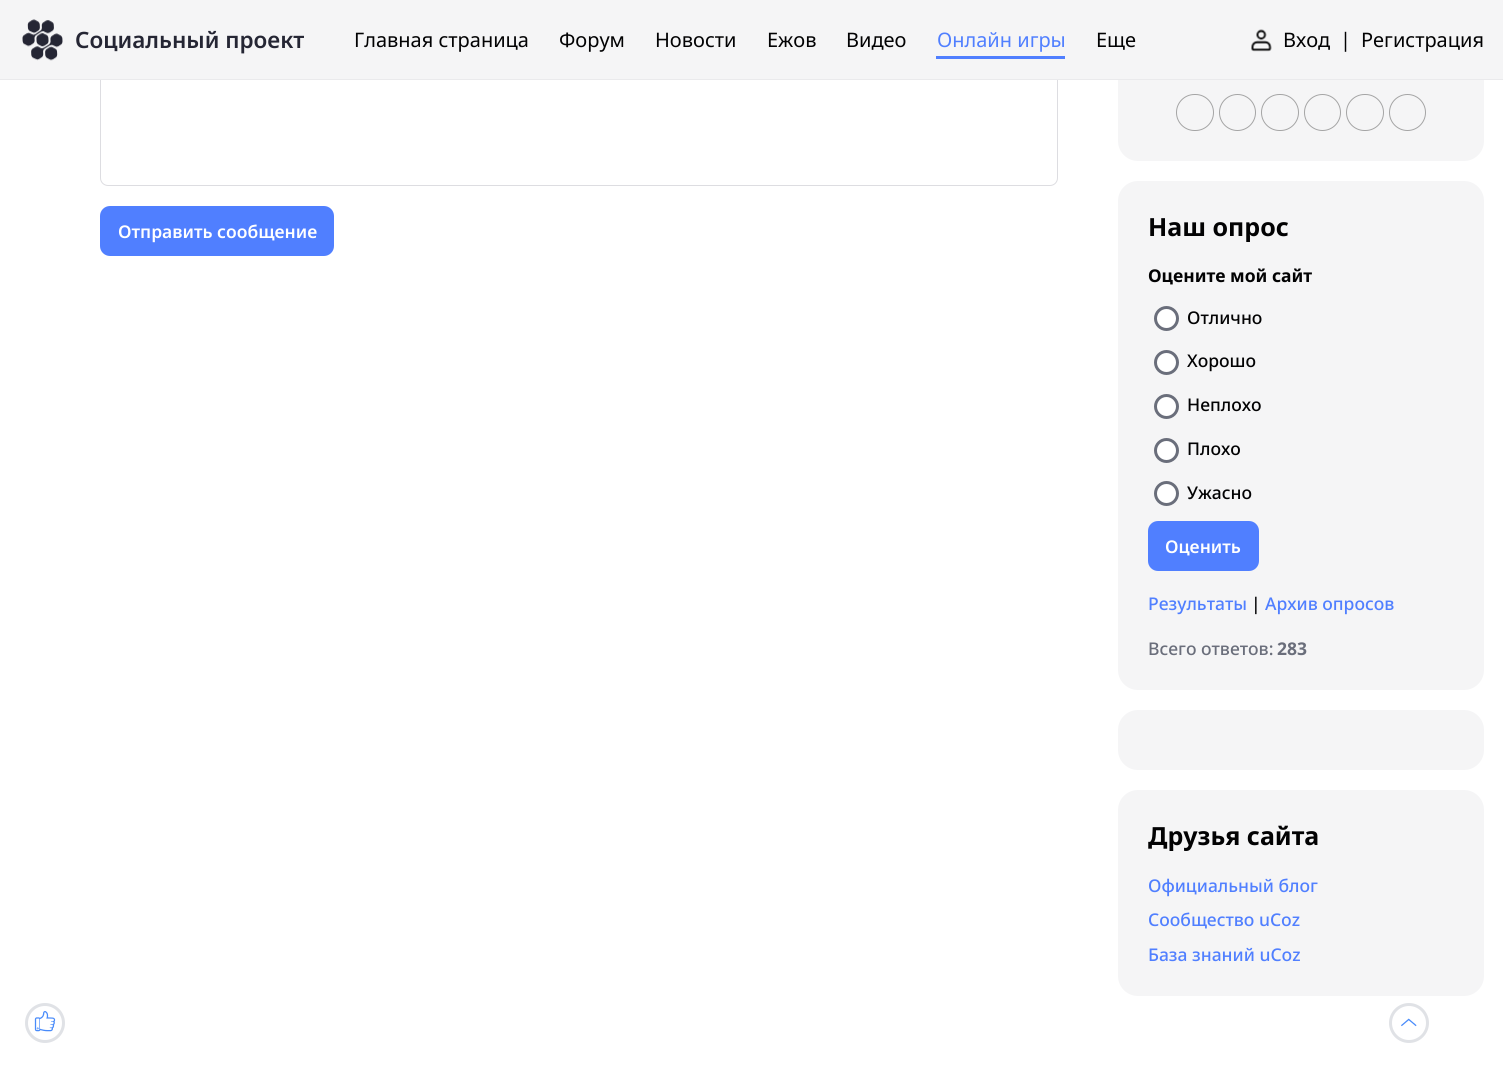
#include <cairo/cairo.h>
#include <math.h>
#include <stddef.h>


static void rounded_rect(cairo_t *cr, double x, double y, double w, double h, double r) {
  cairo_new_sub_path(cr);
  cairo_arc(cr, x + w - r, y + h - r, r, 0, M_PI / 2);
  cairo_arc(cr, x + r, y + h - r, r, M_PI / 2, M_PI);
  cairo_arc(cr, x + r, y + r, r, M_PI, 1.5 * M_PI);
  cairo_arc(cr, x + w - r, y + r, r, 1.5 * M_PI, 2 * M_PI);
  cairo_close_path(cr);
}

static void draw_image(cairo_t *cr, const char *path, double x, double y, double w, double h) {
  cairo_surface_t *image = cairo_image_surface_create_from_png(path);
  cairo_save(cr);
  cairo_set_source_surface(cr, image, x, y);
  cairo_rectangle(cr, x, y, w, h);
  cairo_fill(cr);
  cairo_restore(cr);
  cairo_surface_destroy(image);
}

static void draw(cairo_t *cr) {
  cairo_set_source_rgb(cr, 1, 1, 1);
  cairo_paint(cr);
  rounded_rect(cr, 100.5, 11.5, 957, 174, 7.5);
  cairo_set_source_rgb(cr, 221 / 255.0, 221 / 255.0, 225 / 255.0);
  cairo_set_line_width(cr, 1);
  cairo_stroke(cr);
  cairo_set_source_rgb(cr, 245 / 255.0, 245 / 255.0, 246 / 255.0);
  rounded_rect(cr, 1118, 11, 366, 150, 20);
  cairo_fill(cr);
  cairo_rectangle(cr, 0, 0, 1503, 79);
  cairo_fill(cr);
  cairo_set_source_rgb(cr, 234 / 255.0, 234 / 255.0, 236 / 255.0);
  cairo_rectangle(cr, 0, 79, 1503, 1);
  cairo_fill(cr);
  draw_image(cr, "images/1.png", 22, 19, 41, 42);
  cairo_set_source_rgb(cr, 80 / 255.0, 127 / 255.0, 1);
  cairo_rectangle(cr, 936, 56, 129, 3);
  cairo_fill(cr);
  draw_image(cr, "images/2.png", 1251, 29, 21, 23);
  rounded_rect(cr, 100, 206, 234, 50, 10);
  cairo_fill(cr);
  rounded_rect(cr, 1176.5, 94.5, 37, 36, 18);
  cairo_set_source_rgb(cr, 165 / 255.0, 165 / 255.0, 165 / 255.0);
  cairo_stroke(cr);
  cairo_arc(cr, 1237.5, 112.5, 18, 0, 2 * M_PI);
  cairo_stroke(cr);
  rounded_rect(cr, 1261.5, 94.5, 37, 36, 18);
  cairo_stroke(cr);
  cairo_arc(cr, 1322.5, 112.5, 18, 0, 2 * M_PI);
  cairo_stroke(cr);
  rounded_rect(cr, 1346.5, 94.5, 37, 36, 18);
  cairo_stroke(cr);
  cairo_arc(cr, 1407.5, 112.5, 18, 0, 2 * M_PI);
  cairo_stroke(cr);
  cairo_set_source_rgb(cr, 245 / 255.0, 245 / 255.0, 246 / 255.0);
  rounded_rect(cr, 1118, 181, 366, 509, 20);
  cairo_fill(cr);
  cairo_set_source_rgb(cr, 1, 1, 1);
  cairo_arc(cr, 1166.5, 318.5, 11, 0, 2 * M_PI);
  cairo_fill_preserve(cr);
  cairo_set_source_rgb(cr, 106 / 255.0, 110 / 255.0, 123 / 255.0);
  cairo_set_line_width(cr, 3);
  cairo_stroke(cr);
  cairo_set_source_rgb(cr, 1, 1, 1);
  cairo_arc(cr, 1166.5, 362.5, 11, 0, 2 * M_PI);
  cairo_fill_preserve(cr);
  cairo_set_source_rgb(cr, 106 / 255.0, 110 / 255.0, 123 / 255.0);
  cairo_stroke(cr);
  cairo_set_source_rgb(cr, 1, 1, 1);
  cairo_arc(cr, 1166.5, 406.5, 11, 0, 2 * M_PI);
  cairo_fill_preserve(cr);
  cairo_set_source_rgb(cr, 106 / 255.0, 110 / 255.0, 123 / 255.0);
  cairo_stroke(cr);
  cairo_set_source_rgb(cr, 1, 1, 1);
  cairo_arc(cr, 1166.5, 450.5, 11, 0, 2 * M_PI);
  cairo_fill_preserve(cr);
  cairo_set_source_rgb(cr, 106 / 255.0, 110 / 255.0, 123 / 255.0);
  cairo_stroke(cr);
  cairo_set_source_rgb(cr, 1, 1, 1);
  cairo_arc(cr, 1166.5, 493.5, 11, 0, 2 * M_PI);
  cairo_fill_preserve(cr);
  cairo_set_source_rgb(cr, 106 / 255.0, 110 / 255.0, 123 / 255.0);
  cairo_stroke(cr);
  cairo_set_source_rgb(cr, 80 / 255.0, 127 / 255.0, 1);
  rounded_rect(cr, 1148, 521, 111, 50, 10);
  cairo_fill(cr);
  cairo_set_source_rgb(cr, 245 / 255.0, 245 / 255.0, 246 / 255.0);
  rounded_rect(cr, 1118, 710, 366, 60, 20);
  cairo_fill(cr);
  rounded_rect(cr, 1118, 790, 366, 206, 20);
  cairo_fill(cr);
  cairo_arc(cr, 45, 1023, 18.5, 0, 2 * M_PI);
  cairo_set_source_rgb(cr, 224 / 255.0, 226 / 255.0, 230 / 255.0);
  cairo_stroke(cr);
  draw_image(cr, "images/3.png", 34, 1011, 22, 21);
  cairo_arc(cr, 1409, 1023, 18.5, 0, 2 * M_PI);
  cairo_stroke(cr);
  draw_image(cr, "images/4.png", 1401, 1018, 16, 9);
  cairo_select_font_face(cr, "Noto Sans SemiBold", CAIRO_FONT_SLANT_NORMAL, CAIRO_FONT_WEIGHT_NORMAL);
  cairo_set_font_size(cr, 22.5);
  cairo_set_source_rgb(cr, 37 / 255.0, 38 / 255.0, 52 / 255.0);
  cairo_move_to(cr, 75, 48);
  cairo_show_text(cr, "Социальный проект");
  cairo_select_font_face(cr, "Noto Sans", CAIRO_FONT_SLANT_NORMAL, CAIRO_FONT_WEIGHT_NORMAL);
  cairo_set_font_size(cr, 20);
  cairo_set_source_rgb(cr, 2 / 255.0, 2 / 255.0, 3 / 255.0);
  cairo_move_to(cr, 354, 47);
  cairo_show_text(cr, "Главная страница");
  cairo_move_to(cr, 559, 47);
  cairo_show_text(cr, "Форум");
  cairo_move_to(cr, 655, 47);
  cairo_show_text(cr, "Новости");
  cairo_move_to(cr, 767, 47);
  cairo_show_text(cr, "Ежов");
  cairo_move_to(cr, 846, 47);
  cairo_show_text(cr, "Видео");
  cairo_set_source_rgb(cr, 80 / 255.0, 127 / 255.0, 1);
  cairo_move_to(cr, 937, 47);
  cairo_show_text(cr, "Онлайн игры");
  cairo_set_source_rgb(cr, 2 / 255.0, 2 / 255.0, 3 / 255.0);
  cairo_move_to(cr, 1096, 47);
  cairo_show_text(cr, "Еще");
  cairo_move_to(cr, 1283, 47);
  cairo_show_text(cr, "Вход");
  cairo_move_to(cr, 1340, 47);
  cairo_show_text(cr, "|");
  cairo_move_to(cr, 1361, 47);
  cairo_show_text(cr, "Регистрация");
  cairo_select_font_face(cr, "Noto Sans SemiBold", CAIRO_FONT_SLANT_NORMAL, CAIRO_FONT_WEIGHT_NORMAL);
  cairo_set_font_size(cr, 17.5);
  cairo_set_source_rgb(cr, 1, 1, 1);
  cairo_move_to(cr, 118, 238);
  cairo_show_text(cr, "Отправить сообщение");
  cairo_select_font_face(cr, "Noto Sans", CAIRO_FONT_SLANT_NORMAL, CAIRO_FONT_WEIGHT_BOLD);
  cairo_set_font_size(cr, 25);
  cairo_set_source_rgb(cr, 2 / 255.0, 2 / 255.0, 3 / 255.0);
  cairo_move_to(cr, 1148, 236);
  cairo_show_text(cr, "Наш опрос");
  cairo_set_font_size(cr, 17.5);
  cairo_move_to(cr, 1148, 282);
  cairo_show_text(cr, "Оцените мой сайт");
  cairo_select_font_face(cr, "Noto Sans Medium", CAIRO_FONT_SLANT_NORMAL, CAIRO_FONT_WEIGHT_NORMAL);
  cairo_move_to(cr, 1187, 324);
  cairo_show_text(cr, "Отлично");
  cairo_move_to(cr, 1187, 367);
  cairo_show_text(cr, "Хорошо");
  cairo_move_to(cr, 1187, 411);
  cairo_show_text(cr, "Неплохо");
  cairo_move_to(cr, 1187, 455);
  cairo_show_text(cr, "Плохо");
  cairo_move_to(cr, 1187, 499);
  cairo_show_text(cr, "Ужасно");
  cairo_select_font_face(cr, "Noto Sans SemiBold", CAIRO_FONT_SLANT_NORMAL, CAIRO_FONT_WEIGHT_NORMAL);
  cairo_set_source_rgb(cr, 1, 1, 1);
  cairo_move_to(cr, 1165, 553);
  cairo_show_text(cr, "Оценить");
  cairo_select_font_face(cr, "Noto Sans Medium", CAIRO_FONT_SLANT_NORMAL, CAIRO_FONT_WEIGHT_NORMAL);
  cairo_set_source_rgb(cr, 80 / 255.0, 127 / 255.0, 1);
  cairo_move_to(cr, 1148, 610);
  cairo_show_text(cr, "Результаты");
  cairo_set_source_rgb(cr, 2 / 255.0, 2 / 255.0, 3 / 255.0);
  cairo_move_to(cr, 1251, 610);
  cairo_show_text(cr, "|");
  cairo_set_source_rgb(cr, 80 / 255.0, 127 / 255.0, 1);
  cairo_move_to(cr, 1265, 610);
  cairo_show_text(cr, "Архив опросов");
  cairo_set_source_rgb(cr, 106 / 255.0, 110 / 255.0, 123 / 255.0);
  cairo_move_to(cr, 1148, 655);
  cairo_show_text(cr, "Всего ответов:");
  cairo_select_font_face(cr, "Noto Sans", CAIRO_FONT_SLANT_NORMAL, CAIRO_FONT_WEIGHT_BOLD);
  cairo_move_to(cr, 1277, 655);
  cairo_show_text(cr, "283");
  cairo_set_font_size(cr, 25);
  cairo_set_source_rgb(cr, 2 / 255.0, 2 / 255.0, 3 / 255.0);
  cairo_move_to(cr, 1148, 845);
  cairo_show_text(cr, "Друзья сайта");
  cairo_select_font_face(cr, "Noto Sans Medium", CAIRO_FONT_SLANT_NORMAL, CAIRO_FONT_WEIGHT_NORMAL);
  cairo_set_font_size(cr, 17.5);
  cairo_set_source_rgb(cr, 80 / 255.0, 127 / 255.0, 1);
  cairo_move_to(cr, 1148, 892);
  cairo_show_text(cr, "Официальный блог");
  cairo_move_to(cr, 1148, 926);
  cairo_show_text(cr, "Сообщество uCoz");
  cairo_move_to(cr, 1148, 961);
  cairo_show_text(cr, "База знаний uCoz");
}

int main(void) {
  cairo_surface_t *surface = cairo_image_surface_create(CAIRO_FORMAT_RGB24, 1503, 1073);
  cairo_t *cr = cairo_create(surface);
  cairo_font_options_t *options = cairo_font_options_create();
  cairo_font_options_set_hint_metrics(options, CAIRO_HINT_METRICS_OFF);
  cairo_font_options_set_hint_style(options, CAIRO_HINT_STYLE_NONE);
  cairo_set_font_options(cr, options);
  cairo_set_miter_limit(cr, 4);
  draw(cr);
  cairo_surface_write_to_png(surface, "out.png");
  cairo_font_options_destroy(options);
  cairo_destroy(cr);
  cairo_surface_destroy(surface);
  return 0;
}
